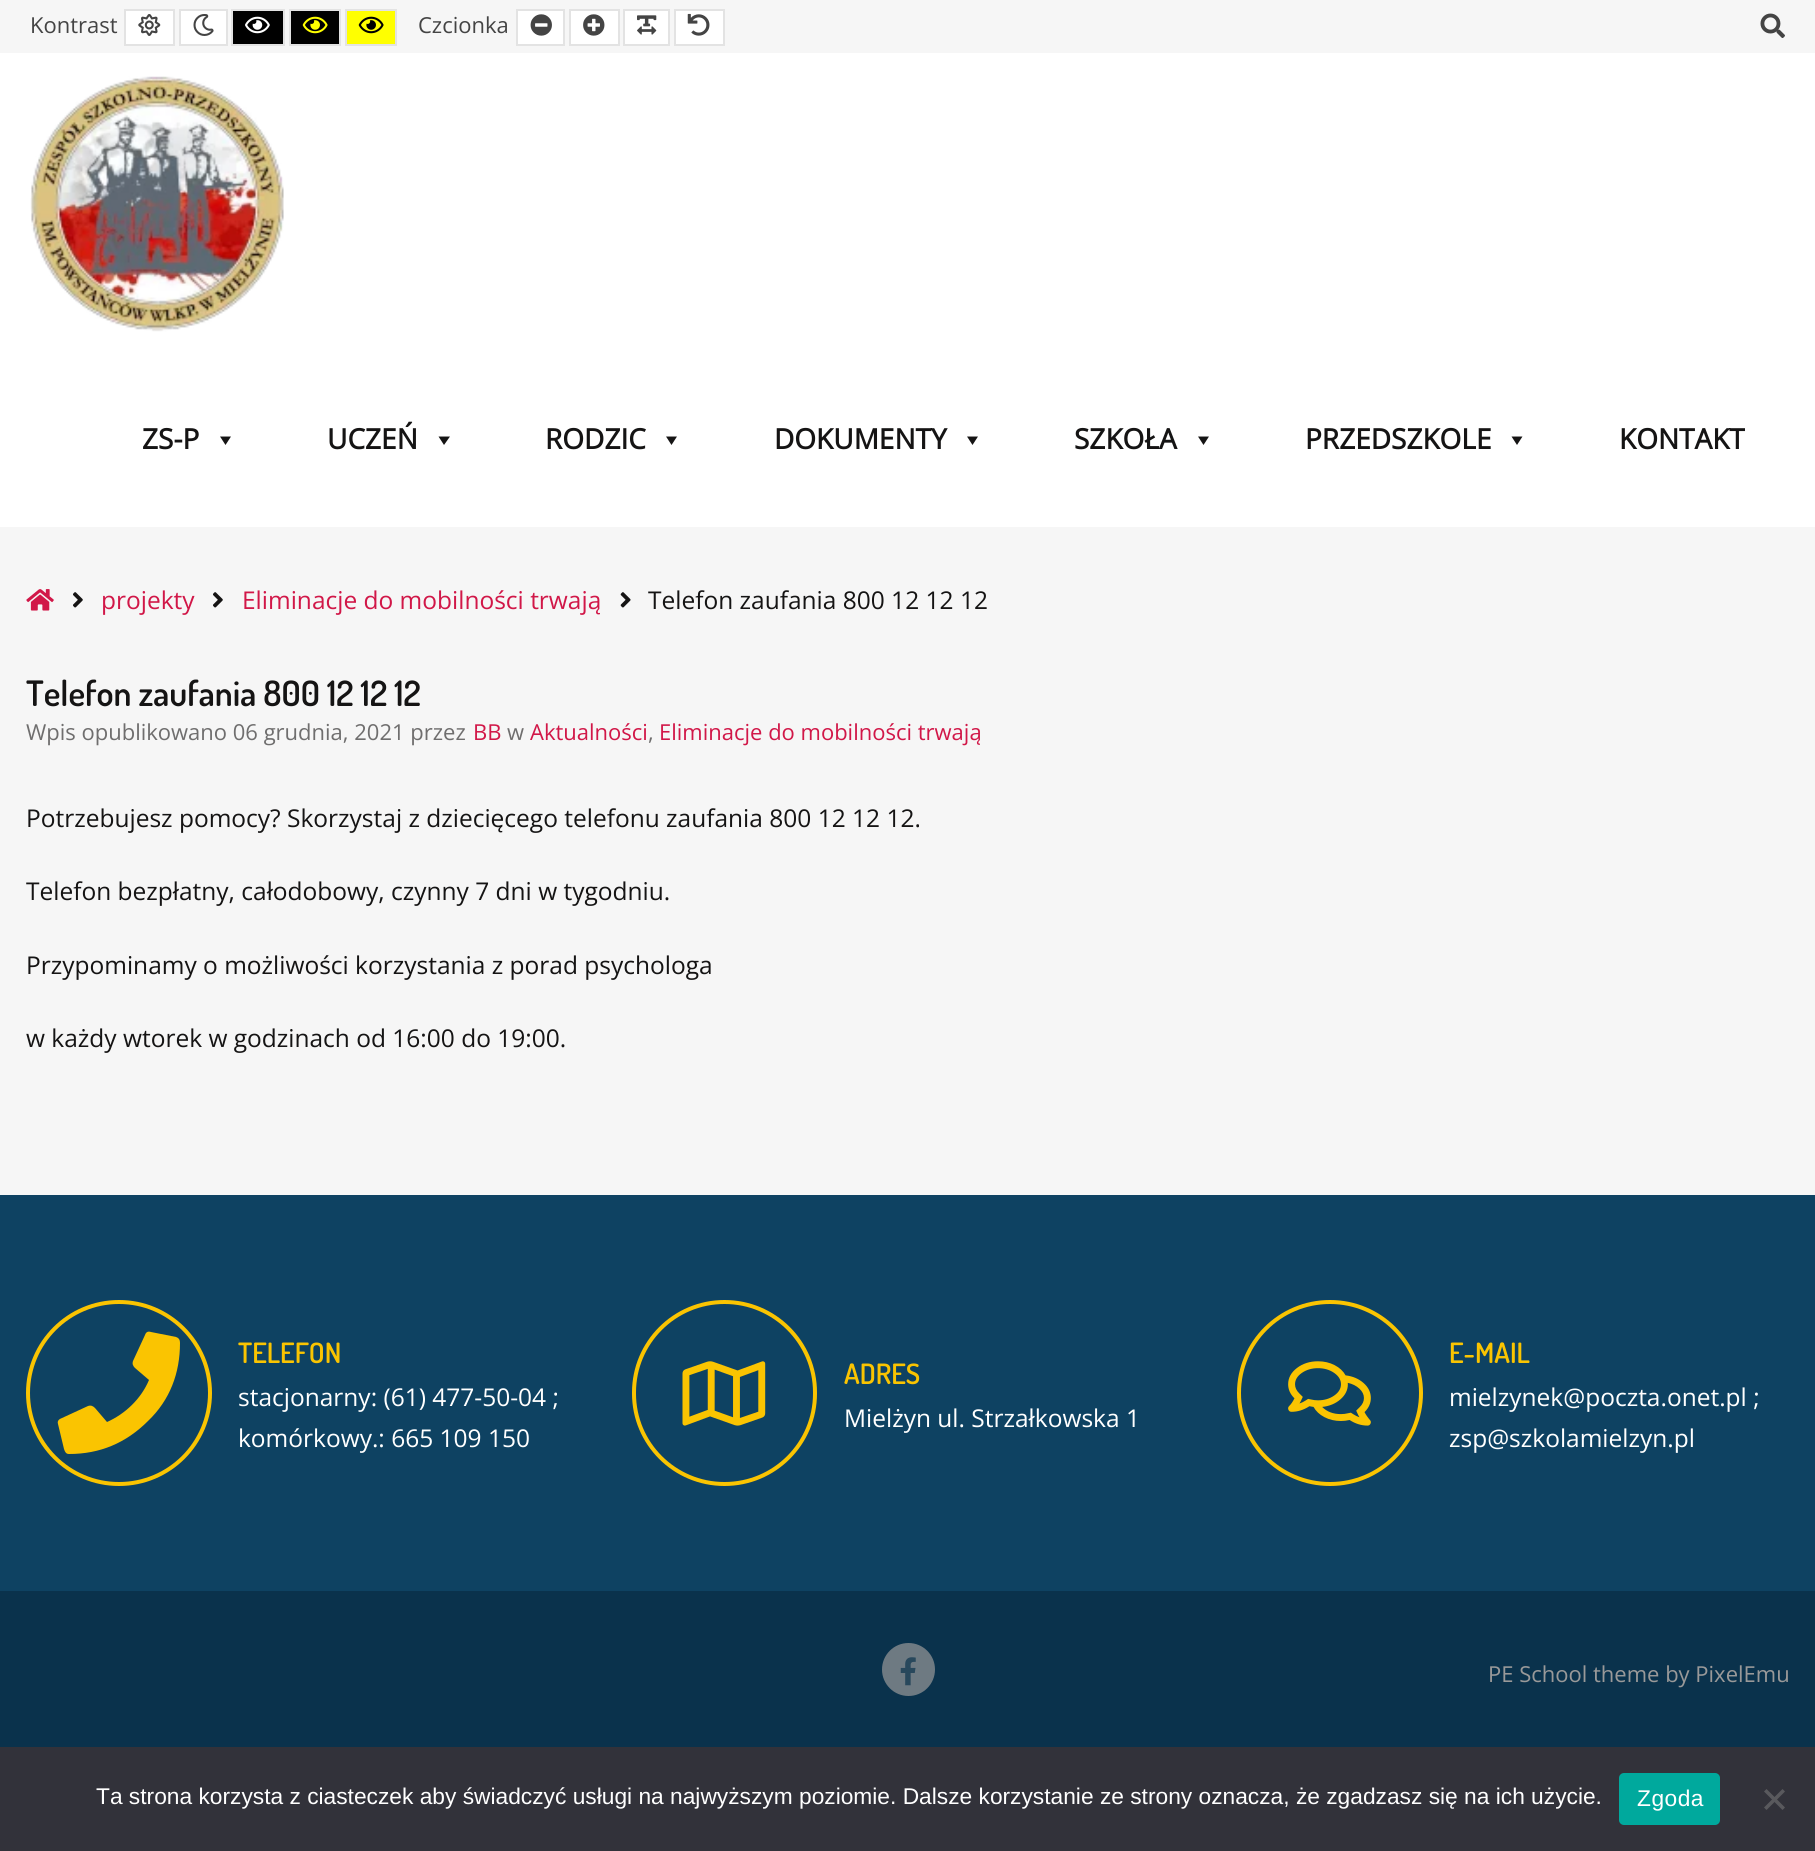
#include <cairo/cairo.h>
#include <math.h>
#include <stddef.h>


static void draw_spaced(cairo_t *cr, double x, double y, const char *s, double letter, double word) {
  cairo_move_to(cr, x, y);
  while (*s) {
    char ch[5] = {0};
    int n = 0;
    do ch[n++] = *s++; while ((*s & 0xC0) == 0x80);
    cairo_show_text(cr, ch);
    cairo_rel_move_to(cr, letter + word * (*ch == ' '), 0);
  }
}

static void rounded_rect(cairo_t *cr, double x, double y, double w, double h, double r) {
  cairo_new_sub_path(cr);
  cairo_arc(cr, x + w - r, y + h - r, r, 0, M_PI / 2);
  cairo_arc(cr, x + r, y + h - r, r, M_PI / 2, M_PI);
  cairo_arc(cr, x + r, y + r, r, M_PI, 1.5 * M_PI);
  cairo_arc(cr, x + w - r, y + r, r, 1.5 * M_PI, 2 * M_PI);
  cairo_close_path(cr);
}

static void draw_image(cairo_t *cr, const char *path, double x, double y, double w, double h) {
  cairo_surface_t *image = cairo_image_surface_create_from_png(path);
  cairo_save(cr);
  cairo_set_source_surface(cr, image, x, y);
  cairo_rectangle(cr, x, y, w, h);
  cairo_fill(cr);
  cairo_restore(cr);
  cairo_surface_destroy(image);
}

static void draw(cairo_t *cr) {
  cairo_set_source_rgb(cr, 246 / 255.0, 246 / 255.0, 246 / 255.0);
  cairo_paint(cr);
  cairo_set_source_rgb(cr, 1, 1, 1);
  cairo_rectangle(cr, 125, 10, 49, 35);
  cairo_fill_preserve(cr);
  cairo_set_source_rgb(cr, 227 / 255.0, 227 / 255.0, 227 / 255.0);
  cairo_stroke(cr);
  draw_image(cr, "images/1.png", 138, 14, 23, 22);
  cairo_set_source_rgb(cr, 1, 1, 1);
  cairo_rectangle(cr, 180, 10, 47, 35);
  cairo_fill_preserve(cr);
  cairo_set_source_rgb(cr, 227 / 255.0, 227 / 255.0, 227 / 255.0);
  cairo_stroke(cr);
  draw_image(cr, "images/2.png", 193, 14, 21, 22);
  cairo_set_source_rgb(cr, 0, 0, 0);
  cairo_rectangle(cr, 232, 10, 52, 35);
  cairo_fill_preserve(cr);
  cairo_set_source_rgb(cr, 227 / 255.0, 227 / 255.0, 227 / 255.0);
  cairo_stroke(cr);
  draw_image(cr, "images/3.png", 245, 16, 25, 18);
  cairo_set_source_rgb(cr, 0, 0, 0);
  cairo_rectangle(cr, 290, 10, 50, 35);
  cairo_fill_preserve(cr);
  cairo_set_source_rgb(cr, 227 / 255.0, 227 / 255.0, 227 / 255.0);
  cairo_stroke(cr);
  draw_image(cr, "images/4.png", 302, 16, 26, 18);
  cairo_set_source_rgb(cr, 1, 1, 0);
  cairo_rectangle(cr, 346, 10, 50, 35);
  cairo_fill_preserve(cr);
  cairo_set_source_rgb(cr, 227 / 255.0, 227 / 255.0, 227 / 255.0);
  cairo_stroke(cr);
  draw_image(cr, "images/5.png", 358, 16, 26, 18);
  cairo_set_source_rgb(cr, 1, 1, 1);
  cairo_rectangle(cr, 517, 10, 47, 35);
  cairo_fill_preserve(cr);
  cairo_set_source_rgb(cr, 227 / 255.0, 227 / 255.0, 227 / 255.0);
  cairo_stroke(cr);
  draw_image(cr, "images/6.png", 530, 14, 22, 22);
  cairo_set_source_rgb(cr, 1, 1, 1);
  cairo_rectangle(cr, 570, 10, 49, 35);
  cairo_fill_preserve(cr);
  cairo_set_source_rgb(cr, 227 / 255.0, 227 / 255.0, 227 / 255.0);
  cairo_stroke(cr);
  draw_image(cr, "images/7.png", 583, 14, 22, 22);
  cairo_set_source_rgb(cr, 1, 1, 1);
  cairo_rectangle(cr, 624, 10, 45, 35);
  cairo_fill_preserve(cr);
  cairo_set_source_rgb(cr, 227 / 255.0, 227 / 255.0, 227 / 255.0);
  cairo_stroke(cr);
  draw_image(cr, "images/8.png", 637, 15, 20, 20);
  cairo_set_source_rgb(cr, 1, 1, 1);
  cairo_rectangle(cr, 675, 10, 49, 35);
  cairo_fill_preserve(cr);
  cairo_set_source_rgb(cr, 227 / 255.0, 227 / 255.0, 227 / 255.0);
  cairo_stroke(cr);
  draw_image(cr, "images/9.png", 687, 13, 23, 23);
  draw_image(cr, "images/10.png", 1760, 13, 25, 25);
  cairo_set_source_rgb(cr, 1, 1, 1);
  cairo_rectangle(cr, 0, 53, 1815, 474);
  cairo_fill(cr);
  draw_image(cr, "images/11.png", 30, 76, 254, 256);
  cairo_set_source_rgb(cr, 21 / 255.0, 20 / 255.0, 20 / 255.0);
  cairo_new_path(cr);
  cairo_move_to(cr, 231, 436.5);
  cairo_line_to(cr, 225.5, 445);
  cairo_line_to(cr, 220, 436.5);
  cairo_close_path(cr);
  cairo_fill(cr);
  cairo_new_path(cr);
  cairo_move_to(cr, 450, 436.5);
  cairo_line_to(cr, 444, 445);
  cairo_line_to(cr, 438.5, 436.5);
  cairo_close_path(cr);
  cairo_fill(cr);
  cairo_new_path(cr);
  cairo_move_to(cr, 677, 436.5);
  cairo_line_to(cr, 671.5, 445);
  cairo_line_to(cr, 666, 436.5);
  cairo_close_path(cr);
  cairo_fill(cr);
  cairo_new_path(cr);
  cairo_move_to(cr, 978, 436.5);
  cairo_line_to(cr, 972.5, 445);
  cairo_line_to(cr, 967, 436.5);
  cairo_close_path(cr);
  cairo_fill(cr);
  cairo_new_path(cr);
  cairo_move_to(cr, 1209, 436.5);
  cairo_line_to(cr, 1203.5, 445);
  cairo_line_to(cr, 1198, 436.5);
  cairo_close_path(cr);
  cairo_fill(cr);
  cairo_new_path(cr);
  cairo_move_to(cr, 1522.5, 436.5);
  cairo_line_to(cr, 1517, 445);
  cairo_line_to(cr, 1511.5, 436.5);
  cairo_close_path(cr);
  cairo_fill(cr);
  draw_image(cr, "images/12.png", 26, 589, 28, 22);
  draw_image(cr, "images/13.png", 73, 592, 10, 16);
  draw_image(cr, "images/13.png", 213, 592, 10, 16);
  draw_image(cr, "images/14.png", 620, 592, 11, 16);
  cairo_set_source_rgb(cr, 14 / 255.0, 66 / 255.0, 98 / 255.0);
  cairo_rectangle(cr, 0, 1195, 1815, 396);
  cairo_fill(cr);
  cairo_arc(cr, 119, 1393, 91, 0, 2 * M_PI);
  cairo_set_source_rgb(cr, 250 / 255.0, 196 / 255.0, 1 / 255.0);
  cairo_set_line_width(cr, 4);
  cairo_stroke(cr);
  cairo_new_path(cr);
  cairo_move_to(cr, 176, 1337);
  cairo_curve_to(cr, 179, 1338, 180, 1340, 180, 1343);
  cairo_curve_to(cr, 180, 1373, 170, 1400, 148, 1421);
  cairo_curve_to(cr, 126, 1443, 100, 1454, 69, 1454);
  cairo_curve_to(cr, 66, 1454, 65, 1452, 64, 1449);
  cairo_line_to(cr, 58, 1424);
  cairo_curve_to(cr, 57, 1421, 59, 1419, 62, 1418);
  cairo_line_to(cr, 88, 1406);
  cairo_curve_to(cr, 91, 1405, 93, 1406, 95, 1408);
  cairo_line_to(cr, 107, 1422);
  cairo_curve_to(cr, 125, 1414, 141, 1399, 149, 1380);
  cairo_line_to(cr, 135, 1368);
  cairo_curve_to(cr, 133, 1366, 132, 1364, 133, 1361);
  cairo_line_to(cr, 145, 1335);
  cairo_curve_to(cr, 146, 1332, 148, 1331, 151, 1332);
  cairo_close_path(cr);
  cairo_fill(cr);
  rounded_rect(cr, 634, 1302, 181, 182, 90.5);
  cairo_stroke(cr);
  draw_image(cr, "images/15.png", 682, 1361, 84, 65);
  cairo_arc(cr, 1330, 1393, 91, 0, 2 * M_PI);
  cairo_stroke(cr);
  draw_image(cr, "images/16.png", 1288, 1361, 83, 65);
  cairo_set_source_rgb(cr, 10 / 255.0, 50 / 255.0, 76 / 255.0);
  cairo_rectangle(cr, 0, 1591, 1815, 156);
  cairo_fill(cr);
  cairo_set_source_rgb(cr, 110 / 255.0, 122 / 255.0, 130 / 255.0);
  cairo_arc(cr, 908.5, 1669.5, 26.5, 0, 2 * M_PI);
  cairo_fill(cr);
  draw_image(cr, "images/17.png", 900, 1657, 16, 29);
  cairo_set_source_rgb(cr, 50 / 255.0, 50 / 255.0, 58 / 255.0);
  cairo_rectangle(cr, 0, 1747, 1815, 104);
  cairo_fill(cr);
  cairo_set_source_rgb(cr, 0, 169 / 255.0, 157 / 255.0);
  rounded_rect(cr, 1619, 1773, 101, 52, 5);
  cairo_fill(cr);
  cairo_set_source_rgb(cr, 89 / 255.0, 89 / 255.0, 93 / 255.0);
  cairo_new_path(cr);
  cairo_move_to(cr, 1782.5, 1789);
  cairo_line_to(cr, 1785, 1791.5);
  cairo_line_to(cr, 1766.5, 1810);
  cairo_line_to(cr, 1764, 1807.5);
  cairo_close_path(cr);
  cairo_fill(cr);
  cairo_new_path(cr);
  cairo_move_to(cr, 1764, 1791.5);
  cairo_line_to(cr, 1766.5, 1789);
  cairo_line_to(cr, 1785, 1807.5);
  cairo_line_to(cr, 1782.5, 1810);
  cairo_close_path(cr);
  cairo_fill(cr);
  cairo_select_font_face(cr, "Open Sans", CAIRO_FONT_SLANT_NORMAL, CAIRO_FONT_WEIGHT_NORMAL);
  cairo_set_font_size(cr, 22);
  cairo_set_source_rgb(cr, 68 / 255.0, 68 / 255.0, 68 / 255.0);
  cairo_move_to(cr, 30, 33);
  cairo_show_text(cr, "Kontrast");
  cairo_move_to(cr, 418, 33);
  cairo_show_text(cr, "Czcionka");
  cairo_select_font_face(cr, "Open Sans", CAIRO_FONT_SLANT_NORMAL, CAIRO_FONT_WEIGHT_BOLD);
  cairo_set_font_size(cr, 28);
  cairo_set_source_rgb(cr, 21 / 255.0, 20 / 255.0, 20 / 255.0);
  cairo_move_to(cr, 142, 449);
  cairo_show_text(cr, "ZS-P");
  cairo_move_to(cr, 327, 449);
  cairo_show_text(cr, "UCZEŃ");
  cairo_move_to(cr, 545, 449);
  cairo_show_text(cr, "RODZIC");
  cairo_move_to(cr, 774, 449);
  cairo_show_text(cr, "DOKUMENTY");
  cairo_move_to(cr, 1074, 449);
  cairo_show_text(cr, "SZKOŁA");
  cairo_move_to(cr, 1305, 449);
  cairo_show_text(cr, "PRZEDSZKOLE");
  cairo_move_to(cr, 1619, 449);
  cairo_show_text(cr, "KONTAKT");
  cairo_select_font_face(cr, "Open Sans", CAIRO_FONT_SLANT_NORMAL, CAIRO_FONT_WEIGHT_NORMAL);
  cairo_set_font_size(cr, 24.5);
  cairo_set_source_rgb(cr, 209 / 255.0, 23 / 255.0, 72 / 255.0);
  cairo_move_to(cr, 101, 609);
  cairo_show_text(cr, "projekty");
  cairo_move_to(cr, 242, 609);
  cairo_show_text(cr, "Eliminacje do mobilności trwają");
  cairo_set_source_rgb(cr, 21 / 255.0, 20 / 255.0, 20 / 255.0);
  cairo_move_to(cr, 648, 609);
  cairo_show_text(cr, "Telefon zaufania 800 12 12 12");
  cairo_select_font_face(cr, "Dosis SemiBold", CAIRO_FONT_SLANT_NORMAL, CAIRO_FONT_WEIGHT_NORMAL);
  cairo_set_font_size(cr, 35);
  cairo_move_to(cr, 26, 706);
  cairo_show_text(cr, "Telefon zaufania 800 12 12 12");
  cairo_select_font_face(cr, "Open Sans", CAIRO_FONT_SLANT_NORMAL, CAIRO_FONT_WEIGHT_NORMAL);
  cairo_set_font_size(cr, 22);
  cairo_set_source_rgb(cr, 111 / 255.0, 110 / 255.0, 110 / 255.0);
  cairo_move_to(cr, 26, 740);
  cairo_show_text(cr, "Wpis opublikowano 06 grudnia, 2021 przez");
  cairo_set_source_rgb(cr, 209 / 255.0, 23 / 255.0, 72 / 255.0);
  cairo_move_to(cr, 473, 740);
  cairo_show_text(cr, "BB");
  cairo_set_source_rgb(cr, 111 / 255.0, 110 / 255.0, 110 / 255.0);
  cairo_move_to(cr, 507, 740);
  cairo_show_text(cr, "w");
  cairo_set_source_rgb(cr, 209 / 255.0, 23 / 255.0, 72 / 255.0);
  cairo_move_to(cr, 530, 740);
  cairo_show_text(cr, "Aktualności");
  cairo_set_source_rgb(cr, 111 / 255.0, 110 / 255.0, 110 / 255.0);
  cairo_move_to(cr, 648, 740);
  cairo_show_text(cr, ",");
  cairo_set_source_rgb(cr, 209 / 255.0, 23 / 255.0, 72 / 255.0);
  cairo_move_to(cr, 659, 740);
  cairo_show_text(cr, "Eliminacje do mobilności trwają");
  cairo_set_font_size(cr, 24.5);
  cairo_set_source_rgb(cr, 21 / 255.0, 20 / 255.0, 20 / 255.0);
  cairo_move_to(cr, 26, 827);
  cairo_show_text(cr, "Potrzebujesz pomocy? Skorzystaj z dziecięcego telefonu zaufania 800 12 12 12.");
  cairo_move_to(cr, 26, 900);
  cairo_show_text(cr, "Telefon bezpłatny, całodobowy, czynny 7 dni w tygodniu.");
  cairo_move_to(cr, 26, 974);
  cairo_show_text(cr, "Przypominamy o możliwości korzystania z porad psychologa");
  cairo_move_to(cr, 26, 1047);
  cairo_show_text(cr, "w każdy wtorek w godzinach od 16:00 do 19:00.");
  cairo_select_font_face(cr, "Dosis SemiBold", CAIRO_FONT_SLANT_NORMAL, CAIRO_FONT_WEIGHT_NORMAL);
  cairo_set_font_size(cr, 28);
  cairo_set_source_rgb(cr, 250 / 255.0, 196 / 255.0, 1 / 255.0);
  cairo_move_to(cr, 238, 1363);
  cairo_show_text(cr, "TELEFON");
  cairo_select_font_face(cr, "Open Sans", CAIRO_FONT_SLANT_NORMAL, CAIRO_FONT_WEIGHT_NORMAL);
  cairo_set_font_size(cr, 24.5);
  cairo_set_source_rgb(cr, 1, 1, 1);
  cairo_move_to(cr, 238, 1406);
  cairo_show_text(cr, "stacjonarny: (61) 477-50-04 ;");
  cairo_move_to(cr, 238, 1447);
  cairo_show_text(cr, "komórkowy.: 665 109 150");
  cairo_select_font_face(cr, "Dosis SemiBold", CAIRO_FONT_SLANT_NORMAL, CAIRO_FONT_WEIGHT_NORMAL);
  cairo_set_font_size(cr, 28);
  cairo_set_source_rgb(cr, 250 / 255.0, 196 / 255.0, 1 / 255.0);
  cairo_move_to(cr, 844, 1384);
  cairo_show_text(cr, "ADRES");
  cairo_select_font_face(cr, "Open Sans", CAIRO_FONT_SLANT_NORMAL, CAIRO_FONT_WEIGHT_NORMAL);
  cairo_set_font_size(cr, 24.5);
  cairo_set_source_rgb(cr, 1, 1, 1);
  cairo_move_to(cr, 844, 1427);
  cairo_show_text(cr, "Mielżyn ul. Strzałkowska 1");
  cairo_select_font_face(cr, "Dosis SemiBold", CAIRO_FONT_SLANT_NORMAL, CAIRO_FONT_WEIGHT_NORMAL);
  cairo_set_font_size(cr, 28);
  cairo_set_source_rgb(cr, 250 / 255.0, 196 / 255.0, 1 / 255.0);
  cairo_move_to(cr, 1449, 1363);
  cairo_show_text(cr, "E-MAIL");
  cairo_select_font_face(cr, "Open Sans", CAIRO_FONT_SLANT_NORMAL, CAIRO_FONT_WEIGHT_NORMAL);
  cairo_set_font_size(cr, 24.5);
  cairo_set_source_rgb(cr, 1, 1, 1);
  cairo_move_to(cr, 1449, 1406);
  cairo_show_text(cr, "mielzynek@poczta.onet.pl ;");
  cairo_move_to(cr, 1449, 1447);
  cairo_show_text(cr, "zsp@szkolamielzyn.pl");
  cairo_set_font_size(cr, 22);
  cairo_set_source_rgb(cr, 153 / 255.0, 153 / 255.0, 153 / 255.0);
  cairo_move_to(cr, 1488, 1682);
  cairo_show_text(cr, "PE School theme by PixelEmu");
  cairo_select_font_face(cr, "Liberation Sans", CAIRO_FONT_SLANT_NORMAL, CAIRO_FONT_WEIGHT_NORMAL);
  cairo_set_font_size(cr, 22.75);
  cairo_set_source_rgb(cr, 1, 1, 1);
  cairo_move_to(cr, 96, 1804);
  cairo_show_text(cr, "Ta strona korzysta z ciasteczek aby świadczyć usługi na najwyższym poziomie. Dalsze korzystanie ze strony oznacza, że zgadzasz się na ich użycie.");
  draw_spaced(cr, 1637, 1806, "Zgoda", 0.5, 0);
}

int main(void) {
  cairo_surface_t *surface = cairo_image_surface_create(CAIRO_FORMAT_RGB24, 1815, 1851);
  cairo_t *cr = cairo_create(surface);
  cairo_font_options_t *options = cairo_font_options_create();
  cairo_font_options_set_hint_metrics(options, CAIRO_HINT_METRICS_OFF);
  cairo_font_options_set_hint_style(options, CAIRO_HINT_STYLE_NONE);
  cairo_set_font_options(cr, options);
  cairo_set_miter_limit(cr, 4);
  draw(cr);
  cairo_surface_write_to_png(surface, "out.png");
  cairo_font_options_destroy(options);
  cairo_destroy(cr);
  cairo_surface_destroy(surface);
  return 0;
}
